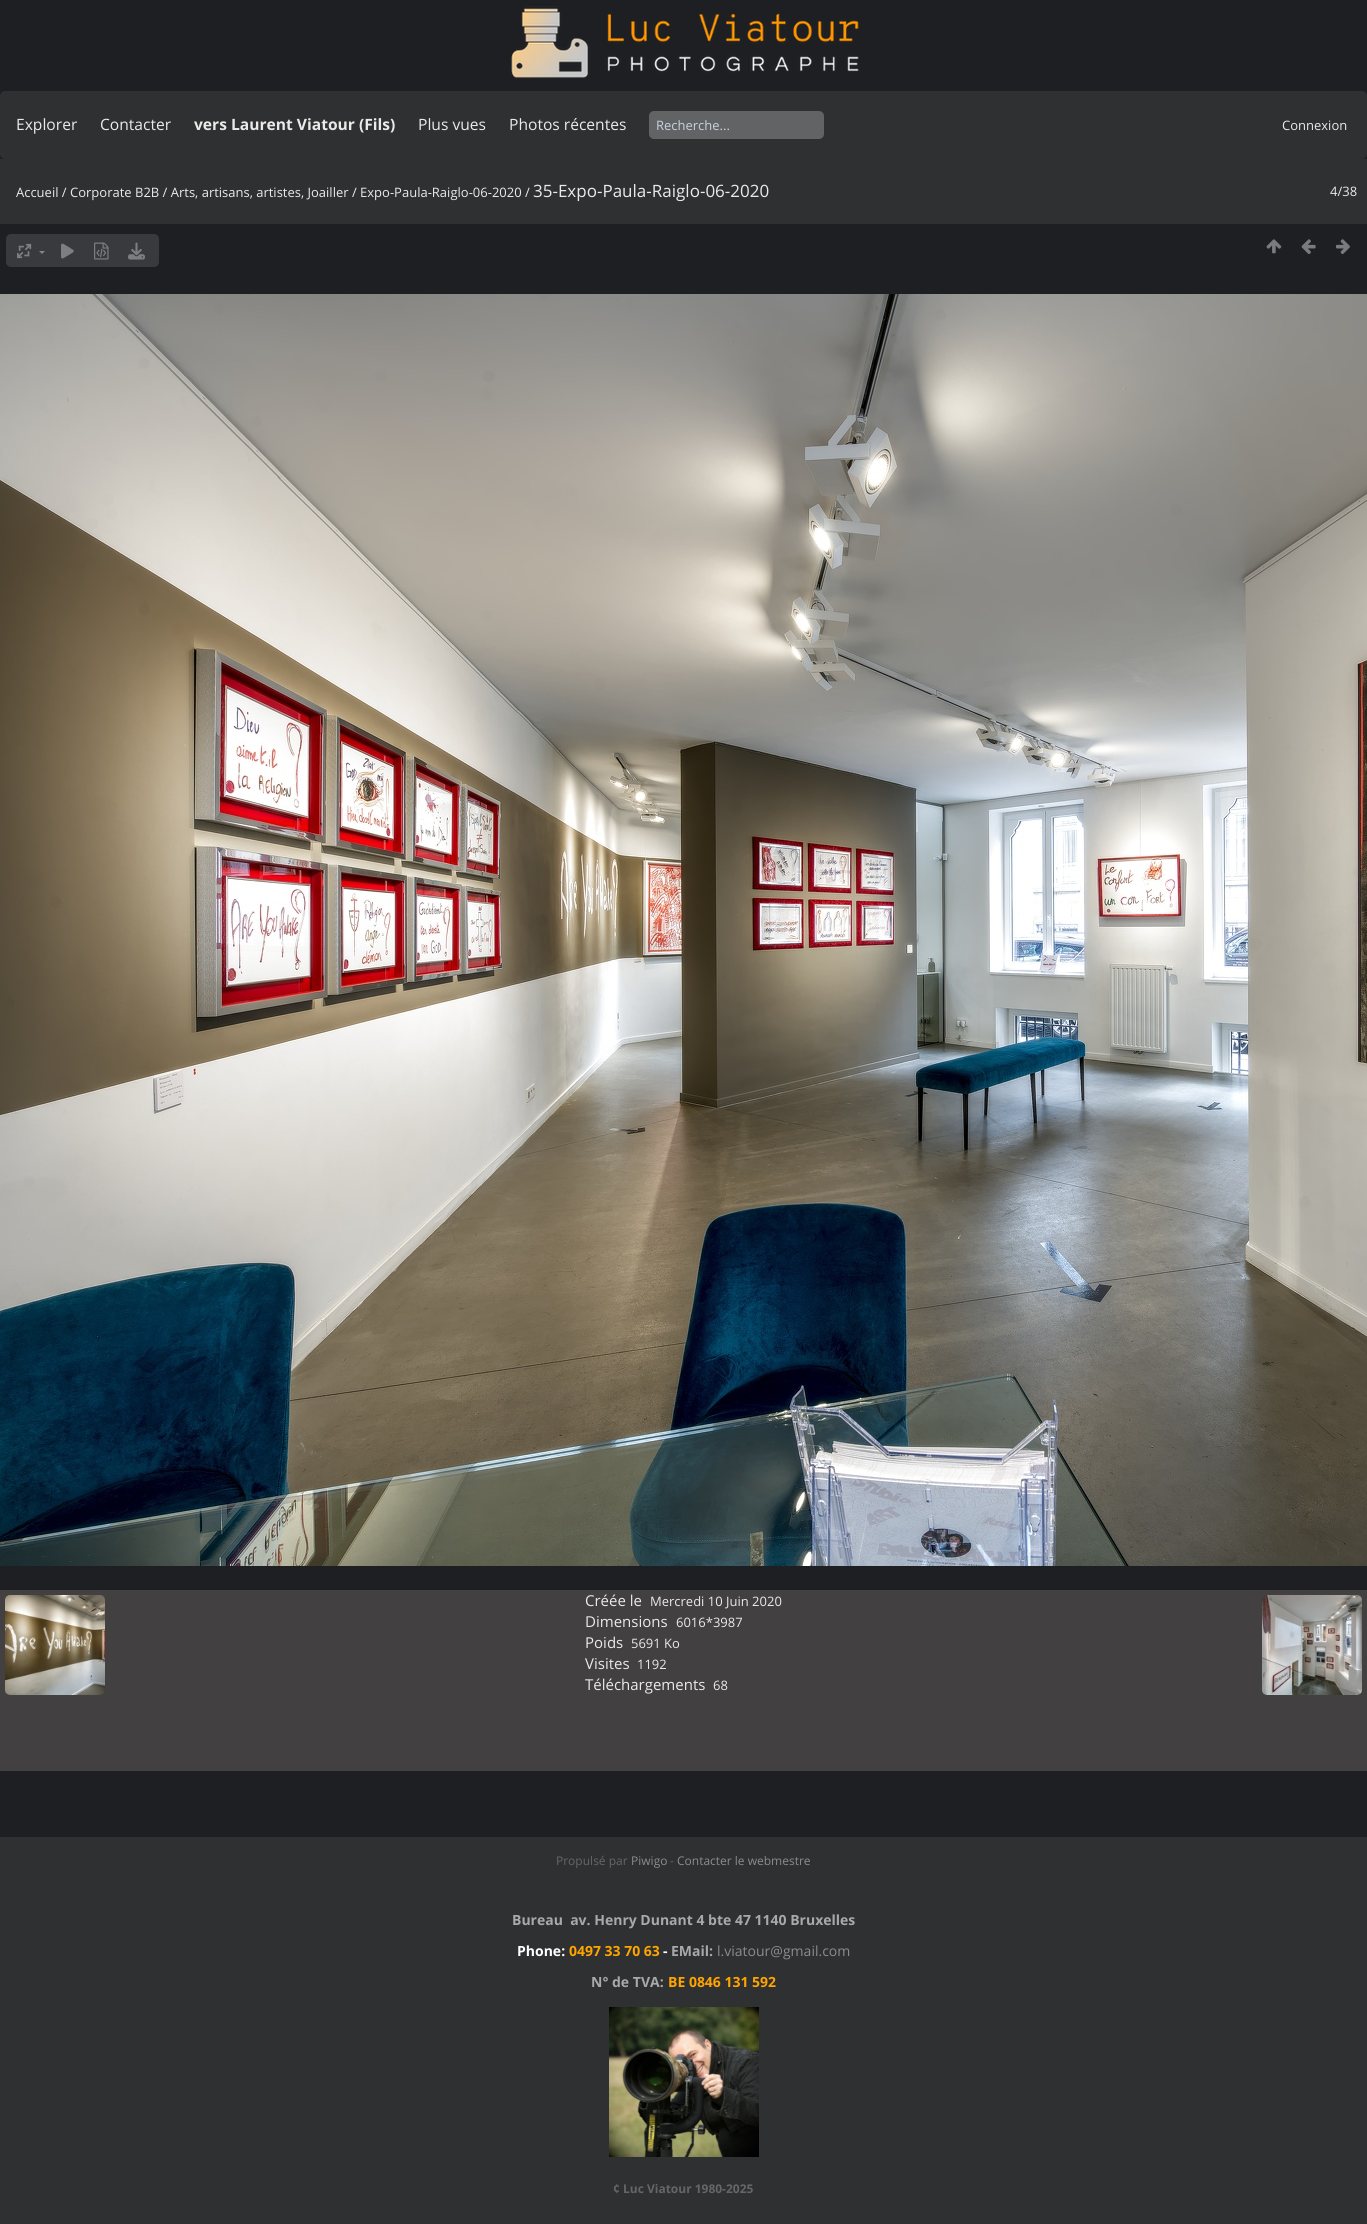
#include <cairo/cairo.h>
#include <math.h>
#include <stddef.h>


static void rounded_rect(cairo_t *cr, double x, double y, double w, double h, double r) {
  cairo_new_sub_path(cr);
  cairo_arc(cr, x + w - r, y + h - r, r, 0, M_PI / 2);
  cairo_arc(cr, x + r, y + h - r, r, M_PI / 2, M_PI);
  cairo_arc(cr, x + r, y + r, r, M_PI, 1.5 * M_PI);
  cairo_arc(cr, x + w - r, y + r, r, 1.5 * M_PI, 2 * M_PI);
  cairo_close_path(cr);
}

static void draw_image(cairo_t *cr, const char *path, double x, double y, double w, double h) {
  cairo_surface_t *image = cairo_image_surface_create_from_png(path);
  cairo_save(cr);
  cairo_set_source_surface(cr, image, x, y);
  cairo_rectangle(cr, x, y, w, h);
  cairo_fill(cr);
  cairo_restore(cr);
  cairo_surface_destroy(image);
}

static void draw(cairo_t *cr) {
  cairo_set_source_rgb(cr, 30 / 255.0, 31 / 255.0, 35 / 255.0);
  cairo_paint(cr);
  draw_image(cr, "images/1.png", 511, 6, 348, 72);
  cairo_set_source_rgb(cr, 47 / 255.0, 48 / 255.0, 50 / 255.0);
  rounded_rect(cr, 0, 91, 1367, 68, 5);
  cairo_fill(cr);
  cairo_set_source_rgb(cr, 97 / 255.0, 99 / 255.0, 100 / 255.0);
  rounded_rect(cr, 649, 111, 175, 28, 5);
  cairo_fill(cr);
  cairo_set_source_rgb(cr, 47 / 255.0, 48 / 255.0, 50 / 255.0);
  cairo_rectangle(cr, 0, 159, 1367, 65);
  cairo_fill(cr);
  cairo_set_source_rgb(cr, 57 / 255.0, 58 / 255.0, 61 / 255.0);
  rounded_rect(cr, 6, 234, 153, 33, 5);
  cairo_fill(cr);
  draw_image(cr, "images/2.png", 17, 243, 15, 16);
  cairo_set_source_rgb(cr, 132 / 255.0, 133 / 255.0, 136 / 255.0);
  cairo_new_path(cr);
  cairo_move_to(cr, 39, 251);
  cairo_line_to(cr, 45, 251);
  cairo_line_to(cr, 42, 254);
  cairo_close_path(cr);
  cairo_fill(cr);
  draw_image(cr, "images/3.png", 61, 243, 13, 16);
  draw_image(cr, "images/4.png", 94, 242, 15, 18);
  draw_image(cr, "images/5.png", 128, 242, 17, 18);
  draw_image(cr, "images/6.png", 1266, 239, 16, 15);
  draw_image(cr, "images/7.png", 1301, 239, 15, 15);
  draw_image(cr, "images/8.png", 1336, 239, 14, 15);
  draw_image(cr, "images/9.png", 0, 294, 1367, 1272);
  cairo_set_source_rgb(cr, 66 / 255.0, 64 / 255.0, 64 / 255.0);
  cairo_rectangle(cr, 0, 1590, 1367, 181);
  cairo_fill(cr);
  draw_image(cr, "images/10.png", 5, 1595, 100, 100);
  draw_image(cr, "images/11.png", 1262, 1595, 100, 100);
  cairo_set_source_rgb(cr, 47 / 255.0, 48 / 255.0, 50 / 255.0);
  cairo_rectangle(cr, 0, 1837, 1367, 387);
  cairo_fill(cr);
  draw_image(cr, "images/12.png", 609, 2007, 150, 150);
  cairo_select_font_face(cr, "Open Sans", CAIRO_FONT_SLANT_NORMAL, CAIRO_FONT_WEIGHT_NORMAL);
  cairo_set_font_size(cr, 15.6);
  cairo_set_source_rgb(cr, 234 / 255.0, 234 / 255.0, 233 / 255.0);
  cairo_move_to(cr, 16, 130);
  cairo_show_text(cr, "Explorer");
  cairo_move_to(cr, 100, 130);
  cairo_show_text(cr, "Contacter");
  cairo_select_font_face(cr, "Open Sans", CAIRO_FONT_SLANT_NORMAL, CAIRO_FONT_WEIGHT_BOLD);
  cairo_move_to(cr, 194, 130);
  cairo_show_text(cr, "vers Laurent Viatour (Fils)");
  cairo_select_font_face(cr, "Open Sans", CAIRO_FONT_SLANT_NORMAL, CAIRO_FONT_WEIGHT_NORMAL);
  cairo_move_to(cr, 418, 130);
  cairo_show_text(cr, "Plus vues");
  cairo_move_to(cr, 509, 130);
  cairo_show_text(cr, "Photos récentes");
  cairo_set_font_size(cr, 13);
  cairo_set_source_rgb(cr, 199 / 255.0, 211 / 255.0, 225 / 255.0);
  cairo_move_to(cr, 656, 130);
  cairo_show_text(cr, "Recherche...");
  cairo_set_source_rgb(cr, 234 / 255.0, 234 / 255.0, 233 / 255.0);
  cairo_move_to(cr, 1282, 130);
  cairo_show_text(cr, "Connexion");
  cairo_move_to(cr, 16, 197);
  cairo_show_text(cr, "Accueil / Corporate B2B / Arts, artisans, artistes, Joailler / Expo-Paula-Raiglo-06-2020 /");
  cairo_set_font_size(cr, 17);
  cairo_move_to(cr, 533, 197);
  cairo_show_text(cr, "35-Expo-Paula-Raiglo-06-2020");
  cairo_set_font_size(cr, 13);
  cairo_move_to(cr, 1330, 196);
  cairo_show_text(cr, "4/38");
  cairo_set_font_size(cr, 15);
  cairo_move_to(cr, 585, 1606);
  cairo_show_text(cr, "Créée le");
  cairo_set_font_size(cr, 13);
  cairo_move_to(cr, 650, 1606);
  cairo_show_text(cr, "Mercredi 10 Juin 2020");
  cairo_set_font_size(cr, 15);
  cairo_move_to(cr, 585, 1627);
  cairo_show_text(cr, "Dimensions");
  cairo_set_font_size(cr, 13);
  cairo_move_to(cr, 676, 1627);
  cairo_show_text(cr, "6016*3987");
  cairo_set_font_size(cr, 15);
  cairo_move_to(cr, 585, 1648);
  cairo_show_text(cr, "Poids");
  cairo_set_font_size(cr, 13);
  cairo_move_to(cr, 631, 1648);
  cairo_show_text(cr, "5691 Ko");
  cairo_set_font_size(cr, 15);
  cairo_move_to(cr, 585, 1669);
  cairo_show_text(cr, "Visites");
  cairo_set_font_size(cr, 13);
  cairo_move_to(cr, 637, 1669);
  cairo_show_text(cr, "1192");
  cairo_set_font_size(cr, 15);
  cairo_move_to(cr, 585, 1690);
  cairo_show_text(cr, "Téléchargements");
  cairo_set_font_size(cr, 13);
  cairo_move_to(cr, 713, 1690);
  cairo_show_text(cr, "68");
  cairo_set_font_size(cr, 12);
  cairo_set_source_rgb(cr, 102 / 255.0, 102 / 255.0, 102 / 255.0);
  cairo_move_to(cr, 556, 1865);
  cairo_show_text(cr, "Propulsé par");
  cairo_set_source_rgb(cr, 141 / 255.0, 139 / 255.0, 139 / 255.0);
  cairo_move_to(cr, 631, 1865);
  cairo_show_text(cr, "Piwigo");
  cairo_set_source_rgb(cr, 102 / 255.0, 102 / 255.0, 102 / 255.0);
  cairo_move_to(cr, 670, 1865);
  cairo_show_text(cr, "-");
  cairo_set_source_rgb(cr, 141 / 255.0, 139 / 255.0, 139 / 255.0);
  cairo_move_to(cr, 677, 1865);
  cairo_show_text(cr, "Contacter le webmestre");
  cairo_select_font_face(cr, "Open Sans", CAIRO_FONT_SLANT_NORMAL, CAIRO_FONT_WEIGHT_BOLD);
  cairo_set_font_size(cr, 14);
  cairo_set_source_rgb(cr, 169 / 255.0, 169 / 255.0, 169 / 255.0);
  cairo_move_to(cr, 512, 1925);
  cairo_show_text(cr, "Bureau  av. Henry Dunant 4 bte 47 1140 Bruxelles");
  cairo_set_source_rgb(cr, 1, 1, 1);
  cairo_move_to(cr, 517, 1956);
  cairo_show_text(cr, "Phone:");
  cairo_set_source_rgb(cr, 1, 165 / 255.0, 0);
  cairo_move_to(cr, 569, 1956);
  cairo_show_text(cr, "0497 33 70 63");
  cairo_set_source_rgb(cr, 1, 1, 1);
  cairo_move_to(cr, 663, 1956);
  cairo_show_text(cr, "-");
  cairo_set_source_rgb(cr, 169 / 255.0, 169 / 255.0, 169 / 255.0);
  cairo_move_to(cr, 671, 1956);
  cairo_show_text(cr, "EMail:");
  cairo_select_font_face(cr, "Open Sans", CAIRO_FONT_SLANT_NORMAL, CAIRO_FONT_WEIGHT_NORMAL);
  cairo_set_source_rgb(cr, 141 / 255.0, 139 / 255.0, 139 / 255.0);
  cairo_move_to(cr, 717, 1956);
  cairo_show_text(cr, "l.viatour@gmail.com");
  cairo_select_font_face(cr, "Open Sans", CAIRO_FONT_SLANT_NORMAL, CAIRO_FONT_WEIGHT_BOLD);
  cairo_set_source_rgb(cr, 169 / 255.0, 169 / 255.0, 169 / 255.0);
  cairo_move_to(cr, 591, 1987);
  cairo_show_text(cr, "N° de TVA:");
  cairo_set_source_rgb(cr, 1, 165 / 255.0, 0);
  cairo_move_to(cr, 668, 1987);
  cairo_show_text(cr, "BE 0846 131 592");
  cairo_set_font_size(cr, 12);
  cairo_set_source_rgb(cr, 102 / 255.0, 102 / 255.0, 102 / 255.0);
  cairo_move_to(cr, 613, 2193);
  cairo_show_text(cr, "¢ Luc Viatour 1980-2025");
}

int main(void) {
  cairo_surface_t *surface = cairo_image_surface_create(CAIRO_FORMAT_RGB24, 1367, 2224);
  cairo_t *cr = cairo_create(surface);
  cairo_font_options_t *options = cairo_font_options_create();
  cairo_font_options_set_hint_metrics(options, CAIRO_HINT_METRICS_OFF);
  cairo_font_options_set_hint_style(options, CAIRO_HINT_STYLE_NONE);
  cairo_set_font_options(cr, options);
  cairo_set_miter_limit(cr, 4);
  draw(cr);
  cairo_surface_write_to_png(surface, "out.png");
  cairo_font_options_destroy(options);
  cairo_destroy(cr);
  cairo_surface_destroy(surface);
  return 0;
}
